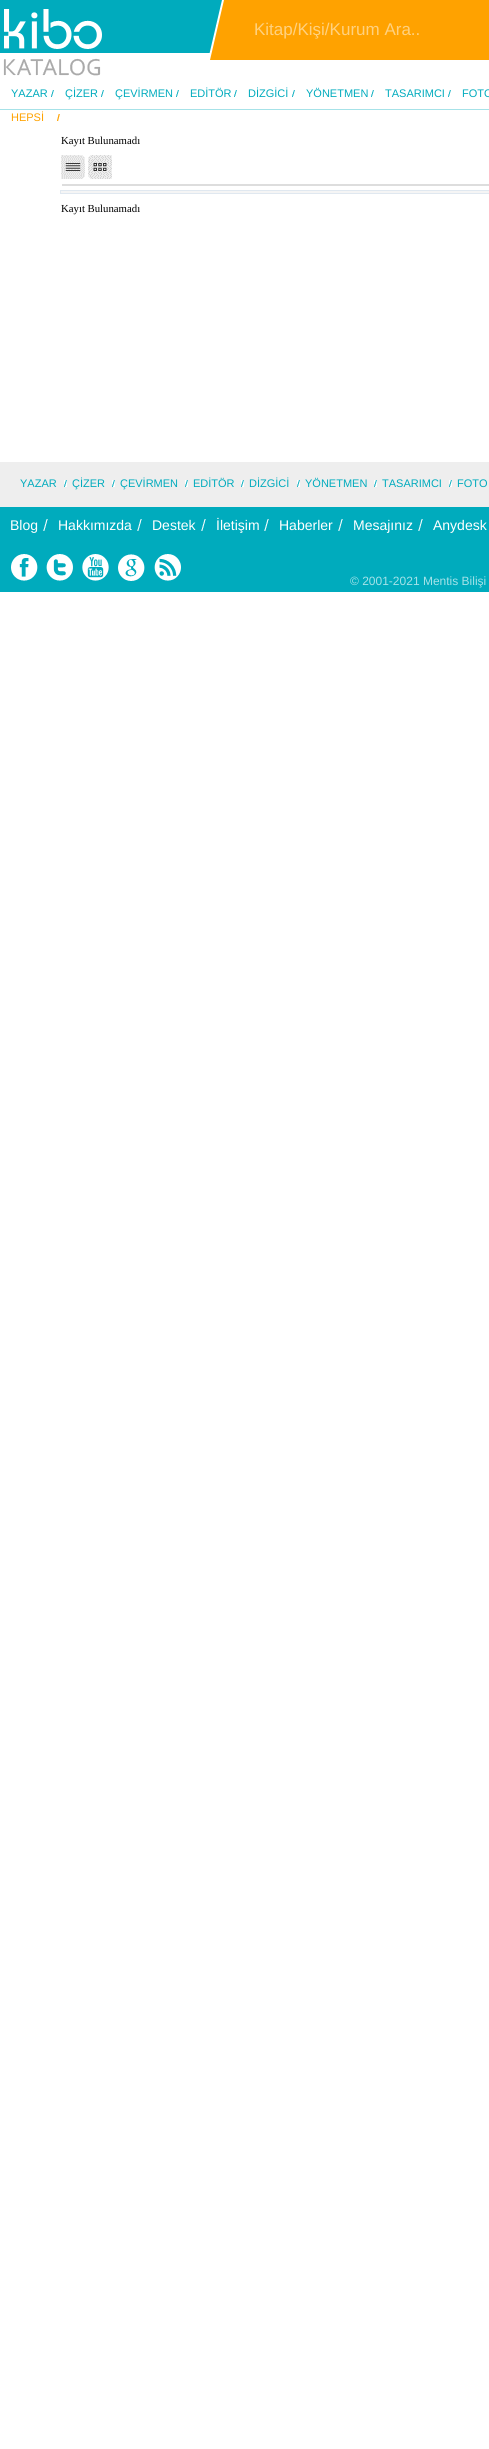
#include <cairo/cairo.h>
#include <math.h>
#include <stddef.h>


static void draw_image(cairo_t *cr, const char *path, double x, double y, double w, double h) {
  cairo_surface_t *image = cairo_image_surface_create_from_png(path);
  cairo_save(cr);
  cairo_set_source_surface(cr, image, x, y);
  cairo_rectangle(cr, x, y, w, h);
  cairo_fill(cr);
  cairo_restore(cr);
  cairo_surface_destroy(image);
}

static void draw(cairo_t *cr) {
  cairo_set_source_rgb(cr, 1, 1, 1);
  cairo_paint(cr);
  cairo_set_source_rgb(cr, 0, 171 / 255.0, 189 / 255.0);
  cairo_rectangle(cr, 0, 0, 222, 53);
  cairo_fill(cr);
  draw_image(cr, "images/1.png", 3, 9, 99, 67);
  draw_image(cr, "images/2.png", 209, 0, 280, 60);
  draw_image(cr, "images/3.png", 51, 90, 3, 7);
  draw_image(cr, "images/3.png", 101, 90, 3, 7);
  draw_image(cr, "images/3.png", 176, 90, 3, 7);
  draw_image(cr, "images/3.png", 234, 90, 3, 7);
  draw_image(cr, "images/3.png", 292, 90, 3, 7);
  draw_image(cr, "images/3.png", 371, 90, 3, 7);
  draw_image(cr, "images/3.png", 448, 90, 3, 7);
  draw_image(cr, "images/4.png", 57, 114, 3, 7);
  draw_image(cr, "images/5.png", 61, 155, 24, 24);
  draw_image(cr, "images/6.png", 88, 155, 24, 24);
  cairo_set_source_rgb(cr, 221 / 255.0, 221 / 255.0, 221 / 255.0);
  cairo_rectangle(cr, 62, 184, 427, 2);
  cairo_fill(cr);
  cairo_set_source_rgb(cr, 245 / 255.0, 245 / 255.0, 245 / 255.0);
  cairo_rectangle(cr, 60.5, 190.5, 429, 3);
  cairo_fill_preserve(cr);
  cairo_set_source_rgb(cr, 224 / 255.0, 232 / 255.0, 240 / 255.0);
  cairo_set_line_width(cr, 1);
  cairo_stroke(cr);
  cairo_set_source_rgb(cr, 166 / 255.0, 226 / 255.0, 232 / 255.0);
  cairo_rectangle(cr, 0, 109, 489, 1);
  cairo_fill(cr);
  cairo_set_source_rgb(cr, 0, 171 / 255.0, 189 / 255.0);
  cairo_rectangle(cr, 0, 507, 489, 85);
  cairo_fill(cr);
  cairo_set_source_rgb(cr, 238 / 255.0, 238 / 255.0, 238 / 255.0);
  cairo_rectangle(cr, 0, 462, 489, 45);
  cairo_fill(cr);
  draw_image(cr, "images/3.png", 64, 480, 3, 7);
  draw_image(cr, "images/3.png", 112, 480, 3, 7);
  draw_image(cr, "images/3.png", 185, 480, 3, 7);
  draw_image(cr, "images/3.png", 241, 480, 3, 7);
  draw_image(cr, "images/3.png", 297, 480, 3, 7);
  draw_image(cr, "images/3.png", 374, 480, 3, 7);
  draw_image(cr, "images/3.png", 449, 480, 3, 7);
  draw_image(cr, "images/7.png", 43, 519, 5, 12);
  draw_image(cr, "images/7.png", 137, 519, 5, 12);
  draw_image(cr, "images/7.png", 201, 519, 5, 12);
  draw_image(cr, "images/7.png", 264, 519, 5, 12);
  draw_image(cr, "images/7.png", 338, 519, 5, 12);
  draw_image(cr, "images/7.png", 418, 519, 5, 12);
  draw_image(cr, "images/8.png", 11, 554, 27, 27);
  draw_image(cr, "images/9.png", 46, 554, 27, 27);
  draw_image(cr, "images/10.png", 82, 554, 27, 27);
  draw_image(cr, "images/11.png", 118, 554, 27, 27);
  draw_image(cr, "images/12.png", 154, 554, 27, 27);
  cairo_select_font_face(cr, "Liberation Sans", CAIRO_FONT_SLANT_NORMAL, CAIRO_FONT_WEIGHT_NORMAL);
  cairo_set_font_size(cr, 17);
  cairo_set_source_rgb(cr, 1, 209 / 255.0, 128 / 255.0);
  cairo_move_to(cr, 254, 35);
  cairo_show_text(cr, "Kitap/Kişi/Kurum Ara..");
  cairo_set_font_size(cr, 11);
  cairo_set_source_rgb(cr, 0, 171 / 255.0, 189 / 255.0);
  cairo_move_to(cr, 11, 97);
  cairo_show_text(cr, "YAZAR");
  cairo_move_to(cr, 65, 97);
  cairo_show_text(cr, "ÇİZER");
  cairo_move_to(cr, 115, 97);
  cairo_show_text(cr, "ÇEVİRMEN");
  cairo_move_to(cr, 190, 97);
  cairo_show_text(cr, "EDİTÖR");
  cairo_move_to(cr, 248, 97);
  cairo_show_text(cr, "DİZGİCİ");
  cairo_move_to(cr, 306, 97);
  cairo_show_text(cr, "YÖNETMEN");
  cairo_move_to(cr, 385, 97);
  cairo_show_text(cr, "TASARIMCI");
  cairo_move_to(cr, 462, 97);
  cairo_show_text(cr, "FOTO");
  cairo_set_source_rgb(cr, 1, 162 / 255.0, 0);
  cairo_move_to(cr, 11, 121);
  cairo_show_text(cr, "HEPSİ");
  cairo_select_font_face(cr, "Liberation Serif", CAIRO_FONT_SLANT_NORMAL, CAIRO_FONT_WEIGHT_NORMAL);
  cairo_set_font_size(cr, 10.75);
  cairo_set_source_rgb(cr, 0, 0, 0);
  cairo_move_to(cr, 61, 144);
  cairo_show_text(cr, "Kayıt Bulunamadı");
  cairo_move_to(cr, 61, 212);
  cairo_show_text(cr, "Kayıt Bulunamadı");
  cairo_select_font_face(cr, "Liberation Sans", CAIRO_FONT_SLANT_NORMAL, CAIRO_FONT_WEIGHT_NORMAL);
  cairo_set_font_size(cr, 11);
  cairo_set_source_rgb(cr, 0, 171 / 255.0, 189 / 255.0);
  cairo_move_to(cr, 20, 487);
  cairo_show_text(cr, "YAZAR");
  cairo_move_to(cr, 72, 487);
  cairo_show_text(cr, "ÇİZER");
  cairo_move_to(cr, 120, 487);
  cairo_show_text(cr, "ÇEVİRMEN");
  cairo_move_to(cr, 193, 487);
  cairo_show_text(cr, "EDİTÖR");
  cairo_move_to(cr, 249, 487);
  cairo_show_text(cr, "DİZGİCİ");
  cairo_move_to(cr, 305, 487);
  cairo_show_text(cr, "YÖNETMEN");
  cairo_move_to(cr, 382, 487);
  cairo_show_text(cr, "TASARIMCI");
  cairo_move_to(cr, 457, 487);
  cairo_show_text(cr, "FOTO");
  cairo_set_font_size(cr, 14);
  cairo_set_source_rgb(cr, 1, 1, 1);
  cairo_move_to(cr, 10, 530);
  cairo_show_text(cr, "Blog");
  cairo_move_to(cr, 58, 530);
  cairo_show_text(cr, "Hakkımızda");
  cairo_move_to(cr, 152, 530);
  cairo_show_text(cr, "Destek");
  cairo_move_to(cr, 216, 530);
  cairo_show_text(cr, "İletişim");
  cairo_move_to(cr, 279, 530);
  cairo_show_text(cr, "Haberler");
  cairo_move_to(cr, 353, 530);
  cairo_show_text(cr, "Mesajınız");
  cairo_move_to(cr, 433, 530);
  cairo_show_text(cr, "Anydesk");
  cairo_set_font_size(cr, 12);
  cairo_set_source_rgb(cr, 165 / 255.0, 226 / 255.0, 232 / 255.0);
  cairo_move_to(cr, 350, 585);
  cairo_show_text(cr, "© 2001-2021 Mentis Bilişi");
}

int main(void) {
  cairo_surface_t *surface = cairo_image_surface_create(CAIRO_FORMAT_RGB24, 489, 2449);
  cairo_t *cr = cairo_create(surface);
  cairo_font_options_t *options = cairo_font_options_create();
  cairo_font_options_set_hint_metrics(options, CAIRO_HINT_METRICS_OFF);
  cairo_font_options_set_hint_style(options, CAIRO_HINT_STYLE_NONE);
  cairo_set_font_options(cr, options);
  cairo_set_miter_limit(cr, 4);
  draw(cr);
  cairo_surface_write_to_png(surface, "out.png");
  cairo_font_options_destroy(options);
  cairo_destroy(cr);
  cairo_surface_destroy(surface);
  return 0;
}
